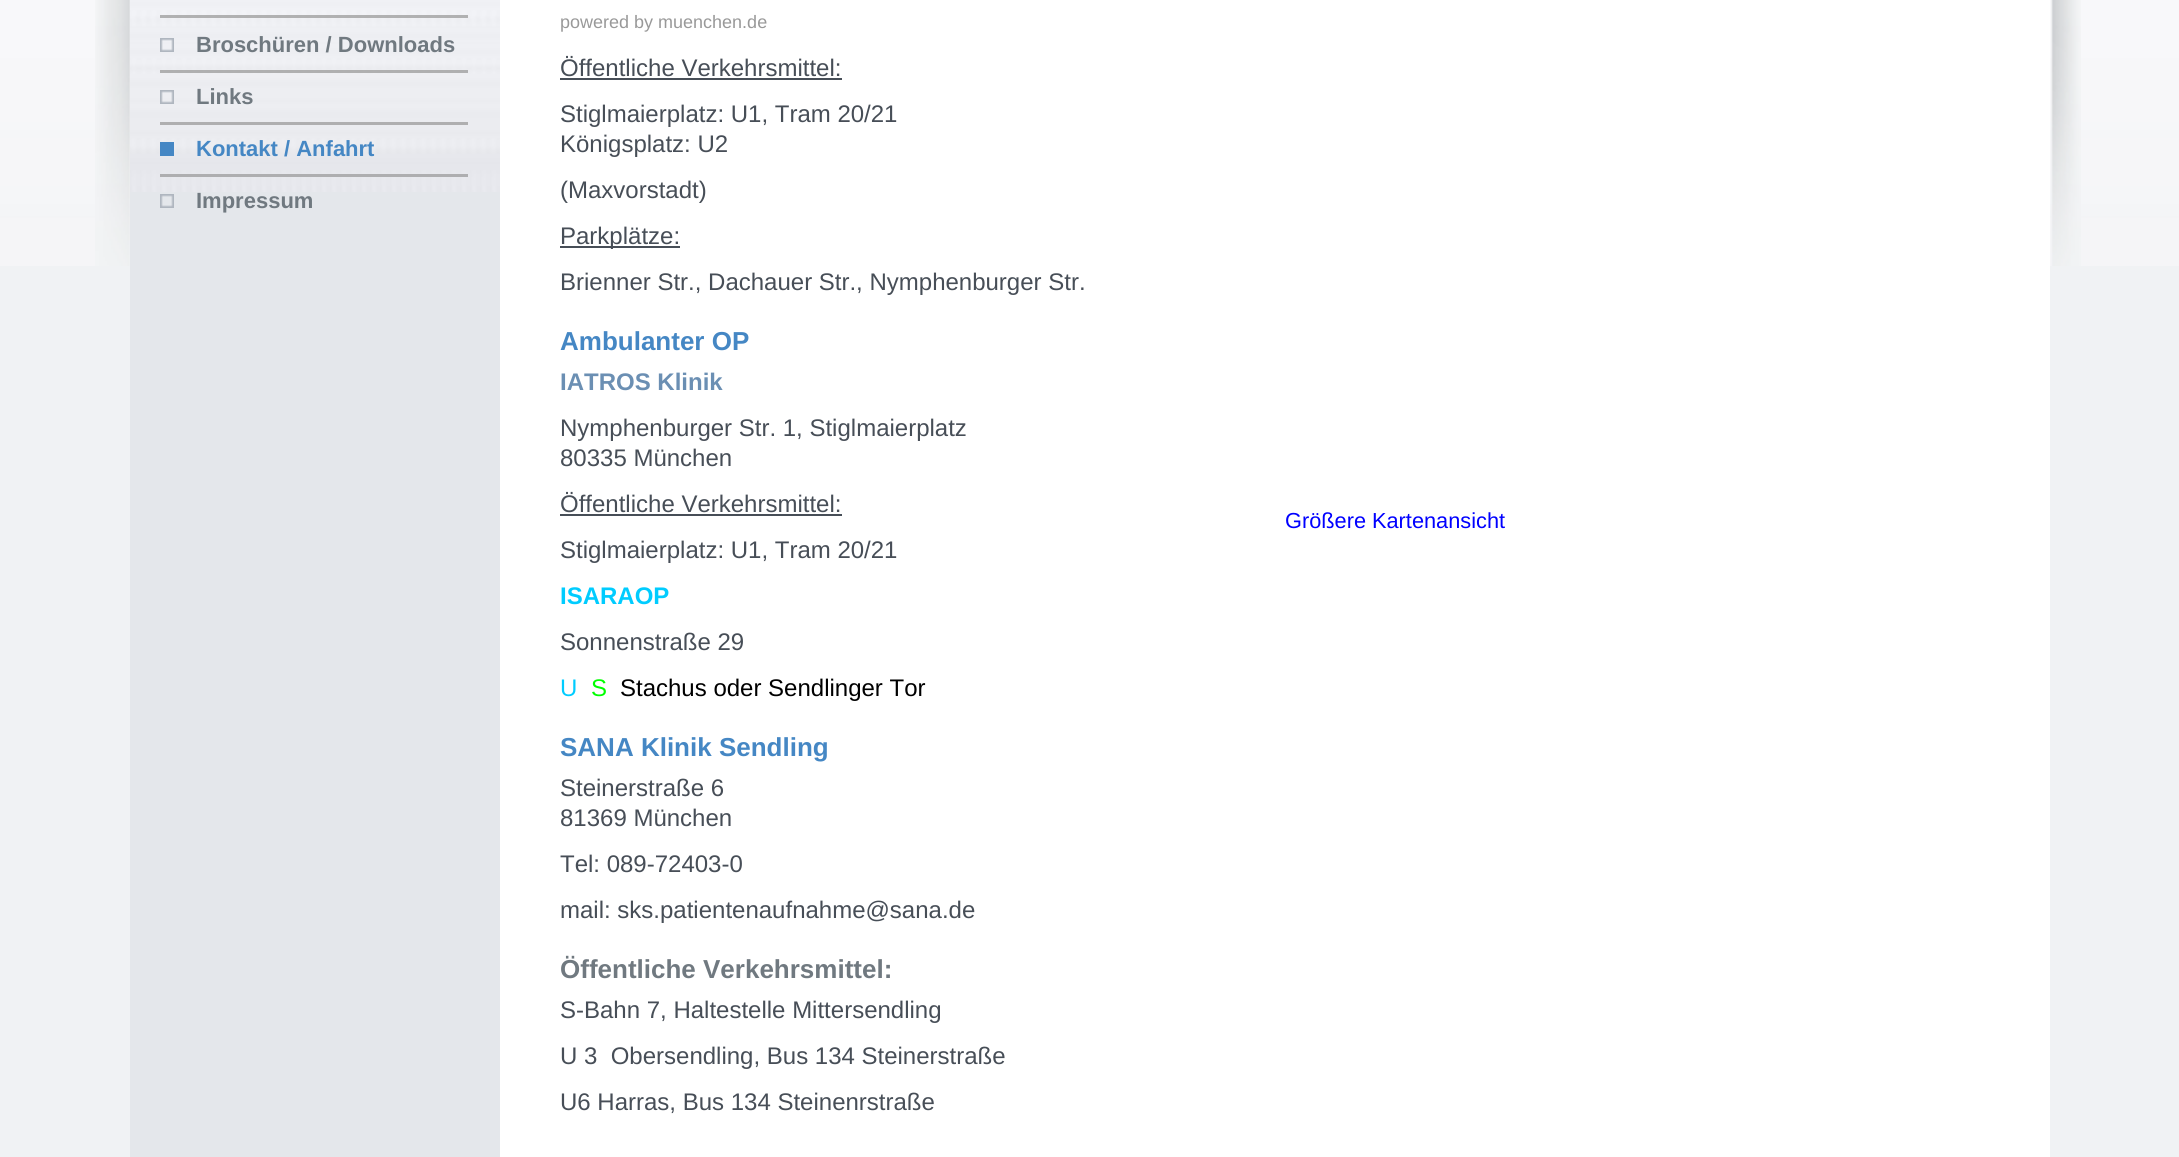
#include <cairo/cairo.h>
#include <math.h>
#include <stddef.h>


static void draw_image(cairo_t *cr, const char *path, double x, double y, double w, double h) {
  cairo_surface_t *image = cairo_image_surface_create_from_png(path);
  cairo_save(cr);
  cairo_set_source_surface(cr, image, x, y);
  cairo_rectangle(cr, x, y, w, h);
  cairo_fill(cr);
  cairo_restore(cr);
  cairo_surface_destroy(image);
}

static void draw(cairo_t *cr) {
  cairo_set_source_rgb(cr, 240 / 255.0, 242 / 255.0, 244 / 255.0);
  cairo_paint(cr);
  draw_image(cr, "images/1.png", 0, 0, 2179, 266);
  draw_image(cr, "images/2.png", 95, 0, 1986, 266);
  cairo_set_source_rgb(cr, 1, 1, 1);
  cairo_rectangle(cr, 500, 0, 1550, 1157);
  cairo_fill(cr);
  cairo_set_source_rgb(cr, 228 / 255.0, 231 / 255.0, 235 / 255.0);
  cairo_rectangle(cr, 130, 192, 370, 965);
  cairo_fill(cr);
  draw_image(cr, "images/3.png", 130, 0, 370, 192);
  cairo_set_source_rgba(cr, 155 / 255.0, 155 / 255.0, 155 / 255.0, 0.75);
  cairo_rectangle(cr, 160, 15, 308, 3);
  cairo_fill(cr);
  draw_image(cr, "images/4.png", 160, 38, 14, 14);
  cairo_rectangle(cr, 160, 70, 308, 3);
  cairo_fill(cr);
  draw_image(cr, "images/5.png", 160, 90, 14, 14);
  cairo_set_source_rgb(cr, 175 / 255.0, 175 / 255.0, 176 / 255.0);
  cairo_rectangle(cr, 160, 122, 308, 3);
  cairo_fill(cr);
  cairo_set_source_rgb(cr, 69 / 255.0, 135 / 255.0, 196 / 255.0);
  cairo_rectangle(cr, 160, 142, 14, 14);
  cairo_fill(cr);
  cairo_set_source_rgb(cr, 174 / 255.0, 174 / 255.0, 176 / 255.0);
  cairo_rectangle(cr, 160, 174, 308, 3);
  cairo_fill(cr);
  draw_image(cr, "images/6.png", 160, 194, 14, 14);
  cairo_set_source_rgb(cr, 71 / 255.0, 78 / 255.0, 87 / 255.0);
  cairo_rectangle(cr, 560, 78, 282, 2);
  cairo_fill(cr);
  cairo_rectangle(cr, 560, 246, 120, 2);
  cairo_fill(cr);
  cairo_rectangle(cr, 560, 514, 282, 2);
  cairo_fill(cr);
  cairo_select_font_face(cr, "Liberation Sans", CAIRO_FONT_SLANT_NORMAL, CAIRO_FONT_WEIGHT_BOLD);
  cairo_set_font_size(cr, 22);
  cairo_set_source_rgb(cr, 112 / 255.0, 121 / 255.0, 128 / 255.0);
  cairo_move_to(cr, 196, 52);
  cairo_show_text(cr, "Broschüren / Downloads");
  cairo_move_to(cr, 196, 104);
  cairo_show_text(cr, "Links");
  cairo_set_source_rgb(cr, 69 / 255.0, 135 / 255.0, 196 / 255.0);
  cairo_move_to(cr, 196, 156);
  cairo_show_text(cr, "Kontakt / Anfahrt");
  cairo_set_source_rgb(cr, 112 / 255.0, 121 / 255.0, 128 / 255.0);
  cairo_move_to(cr, 196, 208);
  cairo_show_text(cr, "Impressum");
  cairo_select_font_face(cr, "Liberation Sans", CAIRO_FONT_SLANT_NORMAL, CAIRO_FONT_WEIGHT_NORMAL);
  cairo_set_font_size(cr, 18);
  cairo_set_source_rgb(cr, 153 / 255.0, 153 / 255.0, 153 / 255.0);
  cairo_move_to(cr, 560, 28);
  cairo_show_text(cr, "powered by muenchen.de");
  cairo_set_font_size(cr, 24);
  cairo_set_source_rgb(cr, 71 / 255.0, 78 / 255.0, 87 / 255.0);
  cairo_move_to(cr, 560, 76);
  cairo_show_text(cr, "Öffentliche Verkehrsmittel:");
  cairo_move_to(cr, 560, 122);
  cairo_show_text(cr, "Stiglmaierplatz: U1, Tram 20/21");
  cairo_move_to(cr, 560, 152);
  cairo_show_text(cr, "Königsplatz: U2");
  cairo_move_to(cr, 560, 198);
  cairo_show_text(cr, "(Maxvorstadt)");
  cairo_move_to(cr, 560, 244);
  cairo_show_text(cr, "Parkplätze:");
  cairo_move_to(cr, 560, 290);
  cairo_show_text(cr, "Brienner Str., Dachauer Str., Nymphenburger Str.");
  cairo_select_font_face(cr, "Liberation Sans", CAIRO_FONT_SLANT_NORMAL, CAIRO_FONT_WEIGHT_BOLD);
  cairo_set_font_size(cr, 26);
  cairo_set_source_rgb(cr, 69 / 255.0, 135 / 255.0, 196 / 255.0);
  cairo_move_to(cr, 560, 350);
  cairo_show_text(cr, "Ambulanter OP");
  cairo_set_font_size(cr, 24);
  cairo_set_source_rgb(cr, 107 / 255.0, 143 / 255.0, 179 / 255.0);
  cairo_move_to(cr, 560, 390);
  cairo_show_text(cr, "IATROS Klinik");
  cairo_select_font_face(cr, "Liberation Sans", CAIRO_FONT_SLANT_NORMAL, CAIRO_FONT_WEIGHT_NORMAL);
  cairo_set_source_rgb(cr, 71 / 255.0, 78 / 255.0, 87 / 255.0);
  cairo_move_to(cr, 560, 436);
  cairo_show_text(cr, "Nymphenburger Str. 1, Stiglmaierplatz");
  cairo_move_to(cr, 560, 466);
  cairo_show_text(cr, "80335 München");
  cairo_move_to(cr, 560, 512);
  cairo_show_text(cr, "Öffentliche Verkehrsmittel:");
  cairo_set_font_size(cr, 21.75);
  cairo_set_source_rgb(cr, 0, 0, 1);
  cairo_move_to(cr, 1285, 528);
  cairo_show_text(cr, "Größere Kartenansicht");
  cairo_set_font_size(cr, 24);
  cairo_set_source_rgb(cr, 71 / 255.0, 78 / 255.0, 87 / 255.0);
  cairo_move_to(cr, 560, 558);
  cairo_show_text(cr, "Stiglmaierplatz: U1, Tram 20/21");
  cairo_select_font_face(cr, "Liberation Sans", CAIRO_FONT_SLANT_NORMAL, CAIRO_FONT_WEIGHT_BOLD);
  cairo_set_source_rgb(cr, 0, 204 / 255.0, 1);
  cairo_move_to(cr, 560, 604);
  cairo_show_text(cr, "ISARAOP");
  cairo_select_font_face(cr, "Liberation Sans", CAIRO_FONT_SLANT_NORMAL, CAIRO_FONT_WEIGHT_NORMAL);
  cairo_set_source_rgb(cr, 71 / 255.0, 78 / 255.0, 87 / 255.0);
  cairo_move_to(cr, 560, 650);
  cairo_show_text(cr, "Sonnenstraße 29");
  cairo_set_source_rgb(cr, 0, 204 / 255.0, 1);
  cairo_move_to(cr, 560, 696);
  cairo_show_text(cr, "U");
  cairo_set_source_rgb(cr, 0, 1, 0);
  cairo_move_to(cr, 591, 696);
  cairo_show_text(cr, "S");
  cairo_set_source_rgb(cr, 0, 0, 0);
  cairo_move_to(cr, 620, 696);
  cairo_show_text(cr, "Stachus oder Sendlinger Tor");
  cairo_select_font_face(cr, "Liberation Sans", CAIRO_FONT_SLANT_NORMAL, CAIRO_FONT_WEIGHT_BOLD);
  cairo_set_font_size(cr, 26);
  cairo_set_source_rgb(cr, 69 / 255.0, 135 / 255.0, 196 / 255.0);
  cairo_move_to(cr, 560, 756);
  cairo_show_text(cr, "SANA Klinik Sendling");
  cairo_select_font_face(cr, "Liberation Sans", CAIRO_FONT_SLANT_NORMAL, CAIRO_FONT_WEIGHT_NORMAL);
  cairo_set_font_size(cr, 24);
  cairo_set_source_rgb(cr, 71 / 255.0, 78 / 255.0, 87 / 255.0);
  cairo_move_to(cr, 560, 796);
  cairo_show_text(cr, "Steinerstraße 6");
  cairo_move_to(cr, 560, 826);
  cairo_show_text(cr, "81369 München");
  cairo_move_to(cr, 560, 872);
  cairo_show_text(cr, "Tel: 089-72403-0");
  cairo_move_to(cr, 560, 918);
  cairo_show_text(cr, "mail: sks.patientenaufnahme@sana.de");
  cairo_select_font_face(cr, "Liberation Sans", CAIRO_FONT_SLANT_NORMAL, CAIRO_FONT_WEIGHT_BOLD);
  cairo_set_font_size(cr, 26);
  cairo_set_source_rgb(cr, 112 / 255.0, 121 / 255.0, 128 / 255.0);
  cairo_move_to(cr, 560, 978);
  cairo_show_text(cr, "Öffentliche Verkehrsmittel:");
  cairo_select_font_face(cr, "Liberation Sans", CAIRO_FONT_SLANT_NORMAL, CAIRO_FONT_WEIGHT_NORMAL);
  cairo_set_font_size(cr, 24);
  cairo_set_source_rgb(cr, 71 / 255.0, 78 / 255.0, 87 / 255.0);
  cairo_move_to(cr, 560, 1018);
  cairo_show_text(cr, "S-Bahn 7, Haltestelle Mittersendling");
  cairo_move_to(cr, 560, 1064);
  cairo_show_text(cr, "U 3  Obersendling, Bus 134 Steinerstraße");
  cairo_move_to(cr, 560, 1110);
  cairo_show_text(cr, "U6 Harras, Bus 134 Steinenrstraße");
}

int main(void) {
  cairo_surface_t *surface = cairo_image_surface_create(CAIRO_FORMAT_RGB24, 2179, 1157);
  cairo_t *cr = cairo_create(surface);
  cairo_font_options_t *options = cairo_font_options_create();
  cairo_font_options_set_hint_metrics(options, CAIRO_HINT_METRICS_OFF);
  cairo_font_options_set_hint_style(options, CAIRO_HINT_STYLE_NONE);
  cairo_set_font_options(cr, options);
  cairo_set_miter_limit(cr, 4);
  draw(cr);
  cairo_surface_write_to_png(surface, "out.png");
  cairo_font_options_destroy(options);
  cairo_destroy(cr);
  cairo_surface_destroy(surface);
  return 0;
}
